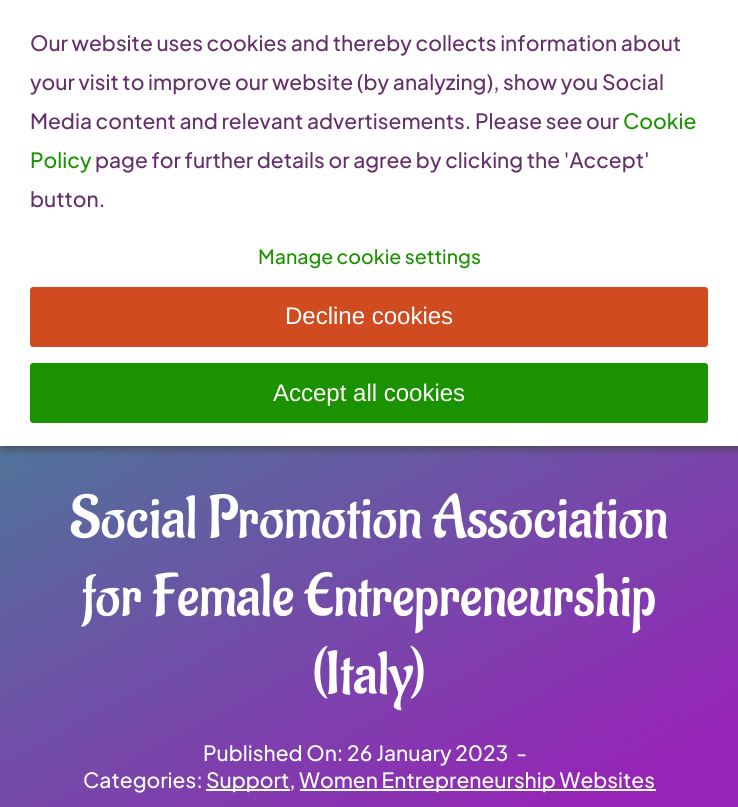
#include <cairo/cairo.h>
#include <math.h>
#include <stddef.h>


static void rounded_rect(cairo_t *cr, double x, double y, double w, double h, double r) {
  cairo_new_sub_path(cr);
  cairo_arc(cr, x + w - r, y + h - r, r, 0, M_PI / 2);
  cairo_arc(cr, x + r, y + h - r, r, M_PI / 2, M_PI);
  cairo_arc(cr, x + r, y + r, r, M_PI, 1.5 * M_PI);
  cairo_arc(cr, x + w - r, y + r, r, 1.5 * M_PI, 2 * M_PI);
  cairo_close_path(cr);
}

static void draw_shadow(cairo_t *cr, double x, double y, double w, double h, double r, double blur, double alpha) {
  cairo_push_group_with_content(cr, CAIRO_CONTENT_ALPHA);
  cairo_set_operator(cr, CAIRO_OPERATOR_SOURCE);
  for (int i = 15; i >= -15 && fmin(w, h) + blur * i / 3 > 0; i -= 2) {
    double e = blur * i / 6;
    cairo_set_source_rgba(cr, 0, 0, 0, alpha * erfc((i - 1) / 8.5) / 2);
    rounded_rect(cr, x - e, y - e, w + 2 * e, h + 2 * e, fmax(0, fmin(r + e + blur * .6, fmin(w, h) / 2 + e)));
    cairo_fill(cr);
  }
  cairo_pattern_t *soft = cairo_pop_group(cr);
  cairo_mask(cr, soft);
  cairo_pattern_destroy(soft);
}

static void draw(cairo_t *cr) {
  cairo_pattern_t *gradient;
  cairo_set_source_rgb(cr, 1, 1, 1);
  cairo_paint(cr);
  gradient = cairo_pattern_create_linear(74, 96, 664, 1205);
  cairo_pattern_add_color_stop_rgba(gradient, 0, 46 / 255.0, 151 / 255.0, 139 / 255.0, 1);
  cairo_pattern_add_color_stop_rgba(gradient, 0.7, 152 / 255.0, 35 / 255.0, 184 / 255.0, 1);
  cairo_set_source(cr, gradient);
  cairo_pattern_destroy(gradient);
  cairo_rectangle(cr, 0, 446, 738, 361);
  cairo_fill(cr);
  cairo_set_source_rgb(cr, 68 / 255.0, 68 / 255.0, 68 / 255.0);
  draw_shadow(cr, 3, 3, 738, 446, 0, 4, 0.75);
  cairo_set_source_rgb(cr, 1, 1, 1);
  cairo_rectangle(cr, 0, 0, 738, 446);
  cairo_fill(cr);
  cairo_set_source_rgb(cr, 208 / 255.0, 76 / 255.0, 32 / 255.0);
  rounded_rect(cr, 30, 287, 678, 60, 3);
  cairo_fill(cr);
  cairo_set_source_rgb(cr, 27 / 255.0, 147 / 255.0, 0);
  rounded_rect(cr, 30, 363, 678, 60, 3);
  cairo_fill(cr);
  cairo_set_source_rgb(cr, 1, 1, 1);
  cairo_rectangle(cr, 206, 789, 84, 2);
  cairo_fill(cr);
  cairo_rectangle(cr, 300, 789, 356, 2);
  cairo_fill(cr);
  cairo_select_font_face(cr, "Plus Jakarta Sans Medium", CAIRO_FONT_SLANT_NORMAL, CAIRO_FONT_WEIGHT_NORMAL);
  cairo_set_font_size(cr, 21);
  cairo_set_source_rgb(cr, 101 / 255.0, 47 / 255.0, 107 / 255.0);
  cairo_move_to(cr, 30, 51);
  cairo_show_text(cr, "Our website uses cookies and thereby collects information about");
  cairo_move_to(cr, 30, 90);
  cairo_show_text(cr, "your visit to improve our website (by analyzing), show you Social");
  cairo_move_to(cr, 30, 129);
  cairo_show_text(cr, "Media content and relevant advertisements. Please see our");
  cairo_set_source_rgb(cr, 27 / 255.0, 147 / 255.0, 0);
  cairo_move_to(cr, 623, 129);
  cairo_show_text(cr, "Cookie");
  cairo_move_to(cr, 30, 168);
  cairo_show_text(cr, "Policy");
  cairo_set_source_rgb(cr, 101 / 255.0, 47 / 255.0, 107 / 255.0);
  cairo_move_to(cr, 95, 168);
  cairo_show_text(cr, "page for further details or agree by clicking the 'Accept'");
  cairo_move_to(cr, 30, 207);
  cairo_show_text(cr, "button.");
  cairo_set_font_size(cr, 19.5);
  cairo_set_source_rgb(cr, 27 / 255.0, 147 / 255.0, 0);
  cairo_move_to(cr, 258, 264);
  cairo_show_text(cr, "Manage cookie settings");
  cairo_select_font_face(cr, "Liberation Sans", CAIRO_FONT_SLANT_NORMAL, CAIRO_FONT_WEIGHT_NORMAL);
  cairo_set_font_size(cr, 24);
  cairo_set_source_rgb(cr, 1, 1, 1);
  cairo_move_to(cr, 285, 324);
  cairo_show_text(cr, "Decline cookies");
  cairo_move_to(cr, 273, 401);
  cairo_show_text(cr, "Accept all cookies");
  cairo_select_font_face(cr, "Aladin", CAIRO_FONT_SLANT_NORMAL, CAIRO_FONT_WEIGHT_NORMAL);
  cairo_set_font_size(cr, 60);
  cairo_move_to(cr, 70, 537);
  cairo_show_text(cr, "Social Promotion Association");
  cairo_move_to(cr, 82, 615);
  cairo_show_text(cr, "for Female Entrepreneurship");
  cairo_move_to(cr, 312, 693);
  cairo_show_text(cr, "(Italy)");
  cairo_select_font_face(cr, "Plus Jakarta Sans Medium", CAIRO_FONT_SLANT_NORMAL, CAIRO_FONT_WEIGHT_NORMAL);
  cairo_set_font_size(cr, 21);
  cairo_move_to(cr, 203, 761);
  cairo_show_text(cr, "Published On: 26 January 2023");
  cairo_move_to(cr, 516, 761);
  cairo_show_text(cr, "-");
  cairo_move_to(cr, 83, 788);
  cairo_show_text(cr, "Categories:");
  cairo_move_to(cr, 206, 788);
  cairo_show_text(cr, "Support,");
  cairo_move_to(cr, 299, 788);
  cairo_show_text(cr, "Women Entrepreneurship Websites");
}

int main(void) {
  cairo_surface_t *surface = cairo_image_surface_create(CAIRO_FORMAT_RGB24, 738, 807);
  cairo_t *cr = cairo_create(surface);
  cairo_font_options_t *options = cairo_font_options_create();
  cairo_font_options_set_hint_metrics(options, CAIRO_HINT_METRICS_OFF);
  cairo_font_options_set_hint_style(options, CAIRO_HINT_STYLE_NONE);
  cairo_set_font_options(cr, options);
  cairo_set_miter_limit(cr, 4);
  draw(cr);
  cairo_surface_write_to_png(surface, "out.png");
  cairo_font_options_destroy(options);
  cairo_destroy(cr);
  cairo_surface_destroy(surface);
  return 0;
}
